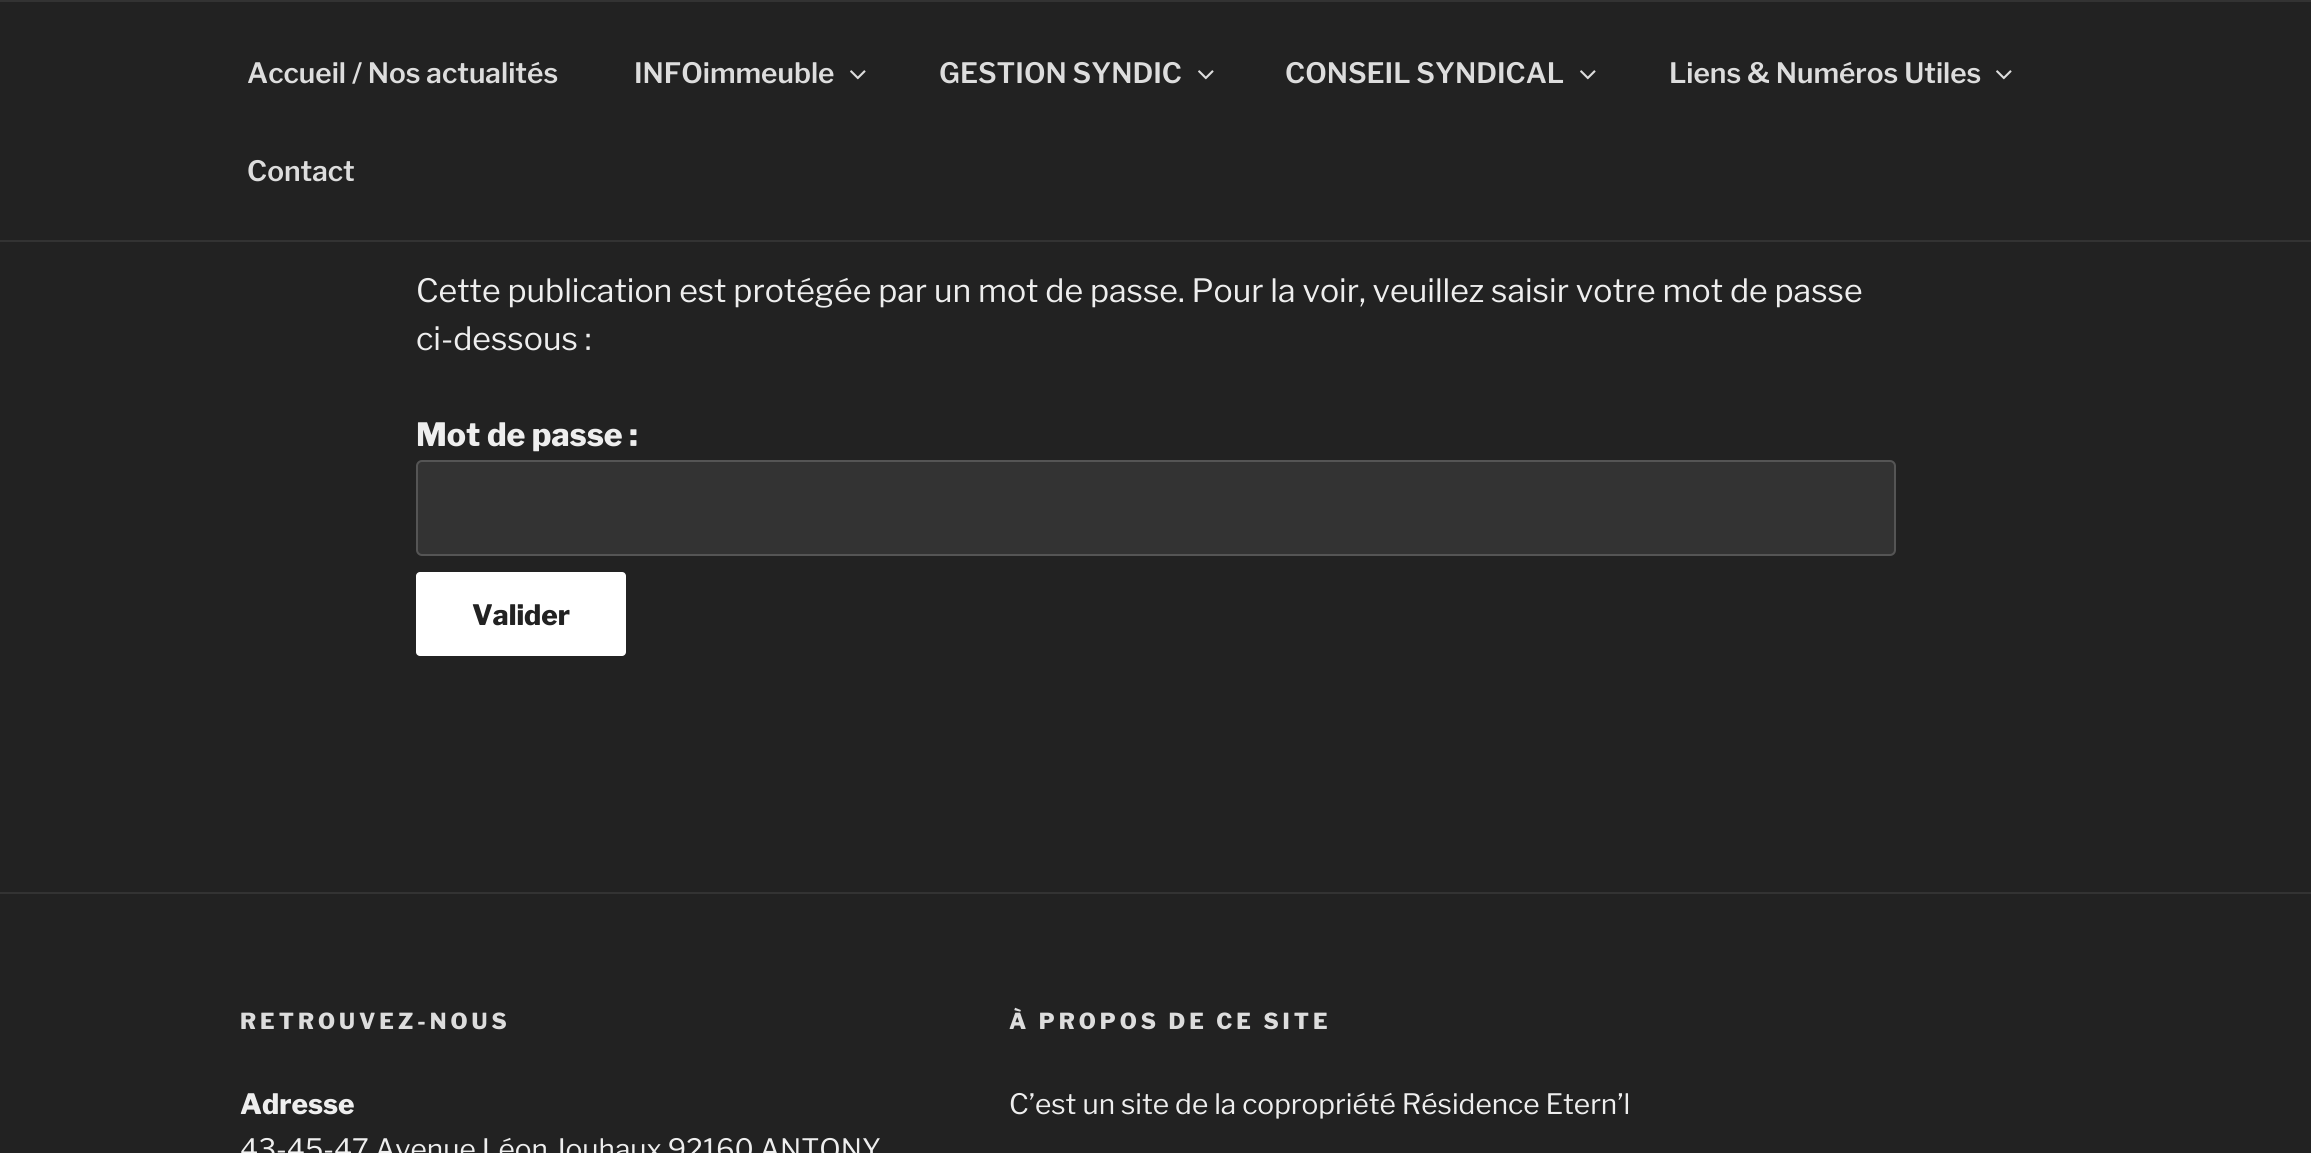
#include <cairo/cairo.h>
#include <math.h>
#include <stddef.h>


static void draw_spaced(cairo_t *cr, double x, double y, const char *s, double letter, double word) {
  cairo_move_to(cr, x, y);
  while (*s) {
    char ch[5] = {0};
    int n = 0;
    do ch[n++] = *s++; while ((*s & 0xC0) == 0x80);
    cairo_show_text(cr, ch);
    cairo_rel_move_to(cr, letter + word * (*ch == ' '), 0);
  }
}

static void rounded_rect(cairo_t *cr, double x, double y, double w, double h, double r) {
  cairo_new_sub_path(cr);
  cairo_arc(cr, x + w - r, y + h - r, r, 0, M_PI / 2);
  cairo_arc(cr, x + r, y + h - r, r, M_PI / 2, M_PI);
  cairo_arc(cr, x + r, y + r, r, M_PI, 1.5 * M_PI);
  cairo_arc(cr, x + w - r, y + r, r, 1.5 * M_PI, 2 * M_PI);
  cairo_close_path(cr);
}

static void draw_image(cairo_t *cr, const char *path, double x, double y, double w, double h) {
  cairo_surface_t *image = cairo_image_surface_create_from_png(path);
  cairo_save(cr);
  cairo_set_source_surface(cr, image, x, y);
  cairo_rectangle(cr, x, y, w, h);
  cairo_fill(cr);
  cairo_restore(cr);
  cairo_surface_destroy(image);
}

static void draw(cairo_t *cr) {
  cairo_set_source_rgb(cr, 34 / 255.0, 34 / 255.0, 34 / 255.0);
  cairo_paint(cr);
  cairo_set_source_rgb(cr, 51 / 255.0, 51 / 255.0, 51 / 255.0);
  cairo_rectangle(cr, 0, 0, 2311, 2);
  cairo_fill(cr);
  cairo_rectangle(cr, 0, 240, 2311, 2);
  cairo_fill(cr);
  draw_image(cr, "images/1.png", 850, 70, 16, 10);
  draw_image(cr, "images/1.png", 1198, 70, 16, 10);
  draw_image(cr, "images/1.png", 1580, 70, 16, 10);
  draw_image(cr, "images/1.png", 1996, 70, 16, 10);
  rounded_rect(cr, 417, 461, 1478, 94, 5);
  cairo_fill_preserve(cr);
  cairo_set_source_rgb(cr, 85 / 255.0, 85 / 255.0, 85 / 255.0);
  cairo_stroke(cr);
  cairo_set_source_rgb(cr, 1, 1, 1);
  rounded_rect(cr, 416, 572, 210, 84, 4);
  cairo_fill(cr);
  cairo_set_source_rgb(cr, 51 / 255.0, 51 / 255.0, 51 / 255.0);
  cairo_rectangle(cr, 0, 892, 2311, 2);
  cairo_fill(cr);
  cairo_select_font_face(cr, "Libre Franklin SemiBold", CAIRO_FONT_SLANT_NORMAL, CAIRO_FONT_WEIGHT_NORMAL);
  cairo_set_font_size(cr, 28);
  cairo_set_source_rgb(cr, 221 / 255.0, 221 / 255.0, 221 / 255.0);
  cairo_move_to(cr, 247, 83);
  cairo_show_text(cr, "Accueil / Nos actualités");
  cairo_move_to(cr, 634, 83);
  cairo_show_text(cr, "INFOimmeuble");
  cairo_move_to(cr, 939, 83);
  cairo_show_text(cr, "GESTION SYNDIC");
  cairo_move_to(cr, 1285, 83);
  cairo_show_text(cr, "CONSEIL SYNDICAL");
  cairo_move_to(cr, 1669, 83);
  cairo_show_text(cr, "Liens & Numéros Utiles");
  cairo_move_to(cr, 247, 181);
  cairo_show_text(cr, "Contact");
  cairo_select_font_face(cr, "Libre Franklin", CAIRO_FONT_SLANT_NORMAL, CAIRO_FONT_WEIGHT_NORMAL);
  cairo_set_font_size(cr, 32);
  cairo_set_source_rgb(cr, 238 / 255.0, 238 / 255.0, 238 / 255.0);
  cairo_move_to(cr, 416, 302);
  cairo_show_text(cr, "Cette publication est protégée par un mot de passe. Pour la voir, veuillez saisir votre mot de passe");
  cairo_move_to(cr, 416, 350);
  cairo_show_text(cr, "ci-dessous :");
  cairo_select_font_face(cr, "Libre Franklin ExtraBold", CAIRO_FONT_SLANT_NORMAL, CAIRO_FONT_WEIGHT_NORMAL);
  cairo_move_to(cr, 416, 446);
  cairo_show_text(cr, "Mot de passe :");
  cairo_set_font_size(cr, 28);
  cairo_set_source_rgb(cr, 34 / 255.0, 34 / 255.0, 34 / 255.0);
  cairo_move_to(cr, 472, 625);
  cairo_show_text(cr, "Valider");
  cairo_set_font_size(cr, 22);
  cairo_set_source_rgb(cr, 221 / 255.0, 221 / 255.0, 221 / 255.0);
  draw_spaced(cr, 240, 1029, "RETROUVEZ-NOUS", 4, 0);
  cairo_set_font_size(cr, 28);
  cairo_set_source_rgb(cr, 238 / 255.0, 238 / 255.0, 238 / 255.0);
  cairo_move_to(cr, 240, 1114);
  cairo_show_text(cr, "Adresse");
  cairo_select_font_face(cr, "Libre Franklin", CAIRO_FONT_SLANT_NORMAL, CAIRO_FONT_WEIGHT_NORMAL);
  cairo_move_to(cr, 240, 1159);
  cairo_show_text(cr, "43-45-47 Avenue Léon Jouhaux 92160 ANTONY");
  cairo_select_font_face(cr, "Libre Franklin ExtraBold", CAIRO_FONT_SLANT_NORMAL, CAIRO_FONT_WEIGHT_NORMAL);
  cairo_set_font_size(cr, 22);
  cairo_set_source_rgb(cr, 221 / 255.0, 221 / 255.0, 221 / 255.0);
  draw_spaced(cr, 1009, 1029, "À PROPOS DE CE SITE", 4, 0);
  cairo_select_font_face(cr, "Libre Franklin", CAIRO_FONT_SLANT_NORMAL, CAIRO_FONT_WEIGHT_NORMAL);
  cairo_set_font_size(cr, 28);
  cairo_set_source_rgb(cr, 238 / 255.0, 238 / 255.0, 238 / 255.0);
  cairo_move_to(cr, 1009, 1114);
  cairo_show_text(cr, "C’est un site de la copropriété Résidence Etern’l");
}

int main(void) {
  cairo_surface_t *surface = cairo_image_surface_create(CAIRO_FORMAT_RGB24, 2311, 1153);
  cairo_t *cr = cairo_create(surface);
  cairo_font_options_t *options = cairo_font_options_create();
  cairo_font_options_set_hint_metrics(options, CAIRO_HINT_METRICS_OFF);
  cairo_font_options_set_hint_style(options, CAIRO_HINT_STYLE_NONE);
  cairo_set_font_options(cr, options);
  cairo_set_miter_limit(cr, 4);
  draw(cr);
  cairo_surface_write_to_png(surface, "out.png");
  cairo_font_options_destroy(options);
  cairo_destroy(cr);
  cairo_surface_destroy(surface);
  return 0;
}
